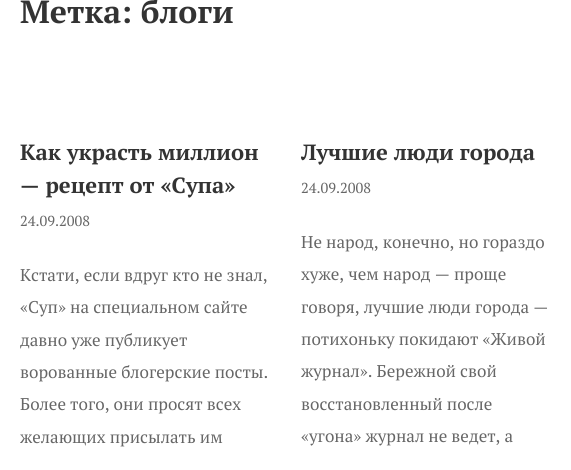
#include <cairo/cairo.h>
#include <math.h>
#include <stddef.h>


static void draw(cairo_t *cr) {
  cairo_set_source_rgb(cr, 1, 1, 1);
  cairo_paint(cr);
  cairo_select_font_face(cr, "PT Serif", CAIRO_FONT_SLANT_NORMAL, CAIRO_FONT_WEIGHT_BOLD);
  cairo_set_font_size(cr, 32);
  cairo_set_source_rgb(cr, 51 / 255.0, 51 / 255.0, 51 / 255.0);
  cairo_move_to(cr, 20, 23);
  cairo_show_text(cr, "Метка: блоги");
  cairo_set_font_size(cr, 22);
  cairo_move_to(cr, 20, 160);
  cairo_show_text(cr, "Как украсть миллион");
  cairo_move_to(cr, 20, 193);
  cairo_show_text(cr, "— рецепт от «Супа»");
  cairo_select_font_face(cr, "PT Serif", CAIRO_FONT_SLANT_NORMAL, CAIRO_FONT_WEIGHT_NORMAL);
  cairo_set_font_size(cr, 14.5);
  cairo_set_source_rgb(cr, 102 / 255.0, 102 / 255.0, 102 / 255.0);
  cairo_move_to(cr, 20, 226);
  cairo_show_text(cr, "24.09.2008");
  cairo_set_font_size(cr, 17);
  cairo_move_to(cr, 20, 281);
  cairo_show_text(cr, "Кстати, если вдруг кто не знал,");
  cairo_move_to(cr, 20, 313);
  cairo_show_text(cr, "«Суп» на специальном сайте");
  cairo_move_to(cr, 20, 346);
  cairo_show_text(cr, "давно уже публикует");
  cairo_move_to(cr, 20, 378);
  cairo_show_text(cr, "ворованные блогерские посты.");
  cairo_move_to(cr, 20, 410);
  cairo_show_text(cr, "Более того, они просят всех");
  cairo_move_to(cr, 20, 443);
  cairo_show_text(cr, "желающих присылать им");
  cairo_save(cr);
  cairo_rectangle(cr, 301, 135, 250, 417);
  cairo_clip(cr);
  cairo_select_font_face(cr, "PT Serif", CAIRO_FONT_SLANT_NORMAL, CAIRO_FONT_WEIGHT_BOLD);
  cairo_set_font_size(cr, 22);
  cairo_set_source_rgb(cr, 51 / 255.0, 51 / 255.0, 51 / 255.0);
  cairo_move_to(cr, 301, 160);
  cairo_show_text(cr, "Лучшие люди города");
  cairo_restore(cr);
  cairo_set_font_size(cr, 14.5);
  cairo_move_to(cr, 301, 193);
  cairo_show_text(cr, "24.09.2008");
  cairo_set_font_size(cr, 17);
  cairo_move_to(cr, 301, 248);
  cairo_show_text(cr, "Не народ, конечно, но гораздо");
  cairo_move_to(cr, 301, 280);
  cairo_show_text(cr, "хуже, чем народ — проще");
  cairo_move_to(cr, 301, 313);
  cairo_show_text(cr, "говоря, лучшие люди города —");
  cairo_move_to(cr, 301, 345);
  cairo_show_text(cr, "потихоньку покидают «Живой");
  cairo_move_to(cr, 301, 377);
  cairo_show_text(cr, "журнал». Бережной свой");
  cairo_move_to(cr, 301, 410);
  cairo_show_text(cr, "восстановленный после");
  cairo_move_to(cr, 301, 442);
  cairo_show_text(cr, "«угона» журнал не ведет, а");
}

int main(void) {
  cairo_surface_t *surface = cairo_image_surface_create(CAIRO_FORMAT_RGB24, 571, 470);
  cairo_t *cr = cairo_create(surface);
  cairo_font_options_t *options = cairo_font_options_create();
  cairo_font_options_set_hint_metrics(options, CAIRO_HINT_METRICS_OFF);
  cairo_font_options_set_hint_style(options, CAIRO_HINT_STYLE_NONE);
  cairo_set_font_options(cr, options);
  cairo_set_miter_limit(cr, 4);
  draw(cr);
  cairo_surface_write_to_png(surface, "out.png");
  cairo_font_options_destroy(options);
  cairo_destroy(cr);
  cairo_surface_destroy(surface);
  return 0;
}
